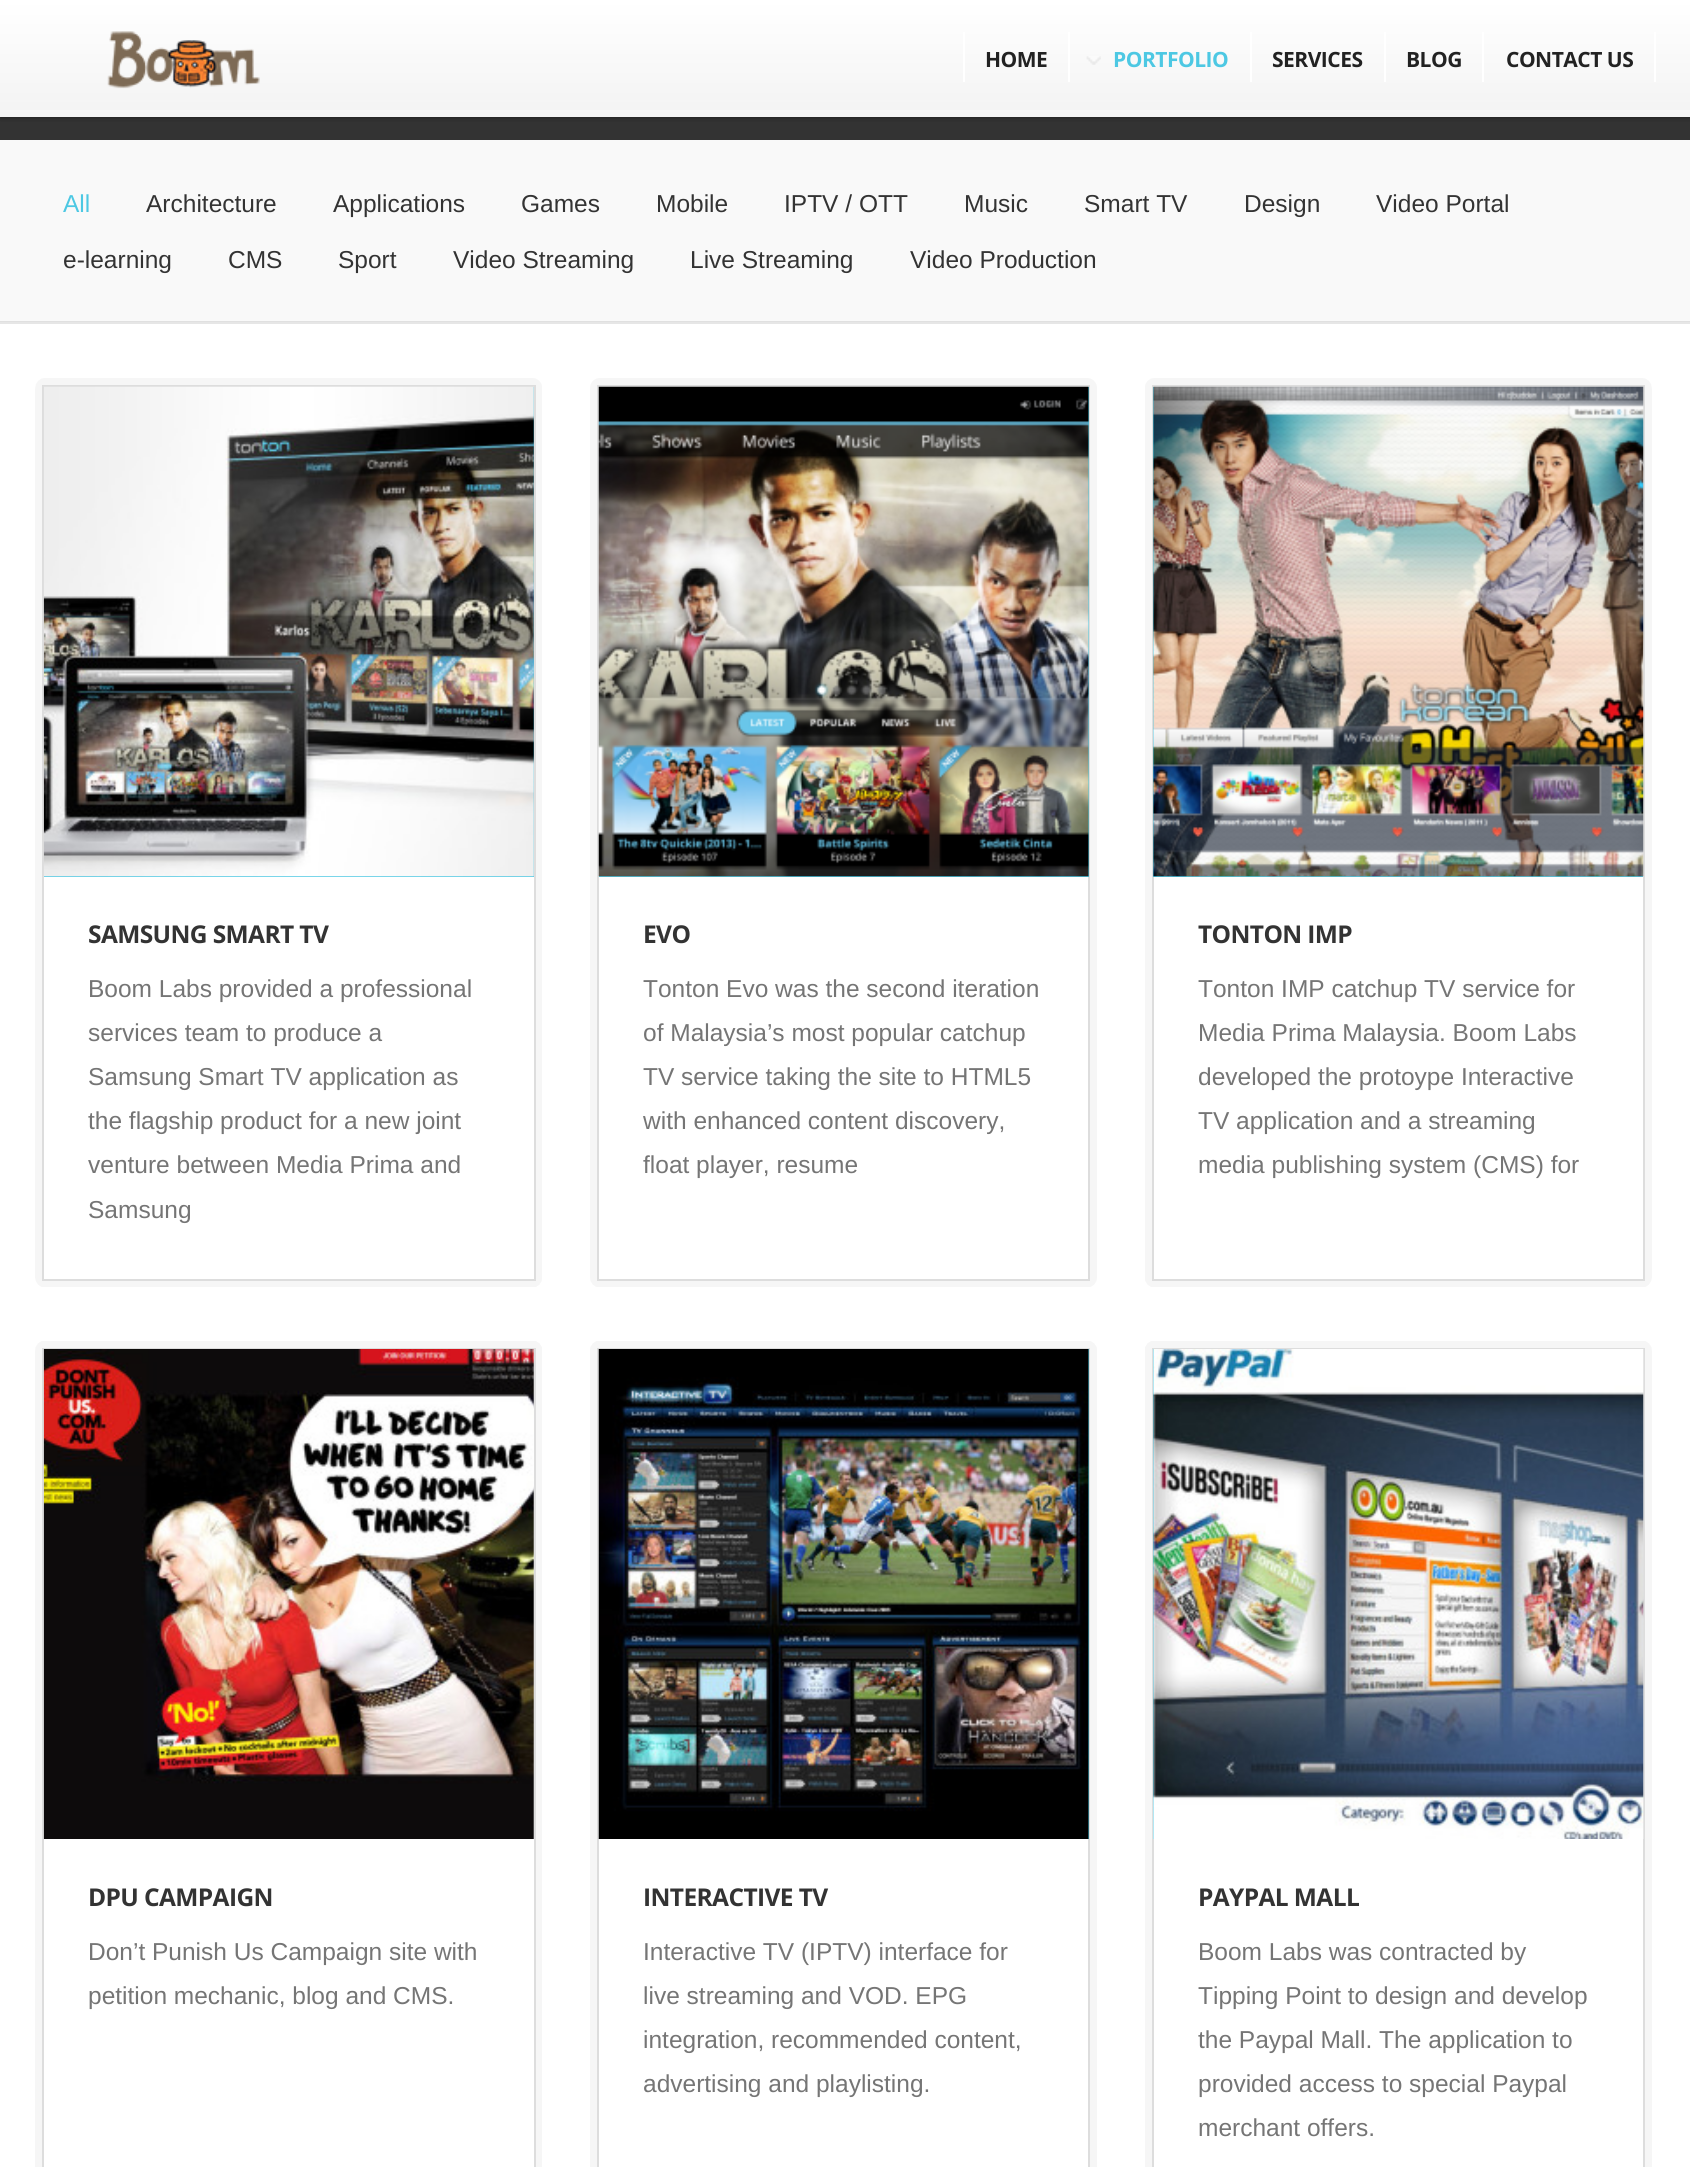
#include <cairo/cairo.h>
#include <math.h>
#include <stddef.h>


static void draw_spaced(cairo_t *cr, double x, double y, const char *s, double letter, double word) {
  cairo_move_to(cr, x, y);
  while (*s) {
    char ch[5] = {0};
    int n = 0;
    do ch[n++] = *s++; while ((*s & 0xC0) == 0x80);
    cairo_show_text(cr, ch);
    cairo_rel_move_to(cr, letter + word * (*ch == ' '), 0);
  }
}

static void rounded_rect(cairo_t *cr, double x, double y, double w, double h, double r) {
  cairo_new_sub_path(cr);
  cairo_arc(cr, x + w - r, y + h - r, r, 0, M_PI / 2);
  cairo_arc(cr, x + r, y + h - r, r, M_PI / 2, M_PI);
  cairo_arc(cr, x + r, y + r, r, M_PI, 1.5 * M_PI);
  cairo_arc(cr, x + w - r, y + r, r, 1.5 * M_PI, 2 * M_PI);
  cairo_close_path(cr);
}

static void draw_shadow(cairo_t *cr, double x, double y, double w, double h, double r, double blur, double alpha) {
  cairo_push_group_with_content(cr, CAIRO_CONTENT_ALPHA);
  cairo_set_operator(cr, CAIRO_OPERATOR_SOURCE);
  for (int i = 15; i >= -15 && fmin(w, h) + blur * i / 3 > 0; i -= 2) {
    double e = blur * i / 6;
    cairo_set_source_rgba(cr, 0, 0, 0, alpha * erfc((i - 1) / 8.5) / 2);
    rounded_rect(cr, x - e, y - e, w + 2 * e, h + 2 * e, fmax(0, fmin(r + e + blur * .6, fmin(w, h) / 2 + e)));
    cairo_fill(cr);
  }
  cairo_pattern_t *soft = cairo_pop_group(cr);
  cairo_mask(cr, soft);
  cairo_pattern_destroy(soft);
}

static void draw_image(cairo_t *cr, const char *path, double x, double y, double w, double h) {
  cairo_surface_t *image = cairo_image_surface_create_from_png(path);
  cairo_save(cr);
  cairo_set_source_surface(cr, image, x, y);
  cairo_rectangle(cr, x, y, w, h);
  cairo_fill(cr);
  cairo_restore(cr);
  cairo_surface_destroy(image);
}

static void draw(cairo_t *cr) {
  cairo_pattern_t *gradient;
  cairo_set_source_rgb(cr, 1, 1, 1);
  cairo_paint(cr);
  cairo_set_source_rgb(cr, 230 / 255.0, 230 / 255.0, 230 / 255.0);
  cairo_rectangle(cr, 0, 322, 1690, 2);
  cairo_fill(cr);
  cairo_set_source_rgb(cr, 51 / 255.0, 51 / 255.0, 51 / 255.0);
  cairo_rectangle(cr, 0, 117, 1690, 23);
  cairo_fill(cr);
  cairo_set_source_rgb(cr, 0, 0, 0);
  draw_shadow(cr, 0, 2, 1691, 117, 0, 2, 0.3);
  gradient = cairo_pattern_create_linear(845, 0, 845, 117);
  cairo_pattern_add_color_stop_rgba(gradient, 0, 1, 1, 1, 1);
  cairo_pattern_add_color_stop_rgba(gradient, 1, 243 / 255.0, 243 / 255.0, 243 / 255.0, 1);
  cairo_set_source(cr, gradient);
  cairo_pattern_destroy(gradient);
  cairo_rectangle(cr, 0, 0, 1690, 117);
  cairo_fill(cr);
  draw_image(cr, "images/1.png", 107, 31, 153, 58);
  cairo_set_source_rgb(cr, 1, 1, 1);
  cairo_rectangle(cr, 1068, 32, 2, 50);
  cairo_fill(cr);
  cairo_rectangle(cr, 963, 32, 2, 50);
  cairo_fill(cr);
  draw_image(cr, "images/2.png", 1086, 56, 15, 9);
  cairo_rectangle(cr, 1250, 32, 2, 50);
  cairo_fill(cr);
  cairo_rectangle(cr, 1384, 32, 2, 50);
  cairo_fill(cr);
  cairo_rectangle(cr, 1482, 32, 2, 50);
  cairo_fill(cr);
  cairo_rectangle(cr, 1654, 32, 2, 50);
  cairo_fill(cr);
  cairo_set_source_rgb(cr, 249 / 255.0, 249 / 255.0, 249 / 255.0);
  cairo_rectangle(cr, 0, 140, 1690, 181);
  cairo_fill(cr);
  cairo_set_source_rgb(cr, 224 / 255.0, 224 / 255.0, 224 / 255.0);
  cairo_rectangle(cr, 0, 321, 1690, 1);
  cairo_fill(cr);
  draw_image(cr, "images/3.png", 35, 378, 507, 909);
  cairo_set_source_rgb(cr, 1, 1, 1);
  cairo_rectangle(cr, 44, 877, 490, 402);
  cairo_fill(cr);
  cairo_rectangle(cr, 43, 386, 492, 894);
  cairo_set_source_rgb(cr, 221 / 255.0, 221 / 255.0, 221 / 255.0);
  cairo_stroke(cr);
  cairo_set_source_rgb(cr, 77 / 255.0, 200 / 255.0, 227 / 255.0);
  cairo_rectangle(cr, 44, 387, 490, 490);
  cairo_fill(cr);
  draw_image(cr, "images/4.png", 43, 386, 491, 491);
  draw_image(cr, "images/5.png", 590, 378, 507, 909);
  cairo_set_source_rgb(cr, 1, 1, 1);
  cairo_rectangle(cr, 599, 877, 489, 402);
  cairo_fill(cr);
  cairo_rectangle(cr, 598, 386, 491, 894);
  cairo_set_source_rgb(cr, 221 / 255.0, 221 / 255.0, 221 / 255.0);
  cairo_stroke(cr);
  cairo_set_source_rgb(cr, 77 / 255.0, 200 / 255.0, 227 / 255.0);
  cairo_rectangle(cr, 599, 387, 490, 490);
  cairo_fill(cr);
  draw_image(cr, "images/6.png", 598, 386, 491, 491);
  draw_image(cr, "images/7.png", 1145, 378, 507, 909);
  cairo_set_source_rgb(cr, 1, 1, 1);
  cairo_rectangle(cr, 1154, 877, 489, 402);
  cairo_fill(cr);
  cairo_rectangle(cr, 1153, 386, 491, 894);
  cairo_set_source_rgb(cr, 221 / 255.0, 221 / 255.0, 221 / 255.0);
  cairo_stroke(cr);
  cairo_set_source_rgb(cr, 77 / 255.0, 200 / 255.0, 227 / 255.0);
  cairo_rectangle(cr, 1153, 387, 490, 490);
  cairo_fill(cr);
  draw_image(cr, "images/8.png", 1153, 386, 491, 491);
  draw_image(cr, "images/9.png", 35, 1341, 507, 826);
  cairo_set_source_rgb(cr, 1, 1, 1);
  cairo_rectangle(cr, 43, 1349, 492, 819);
  cairo_fill_preserve(cr);
  cairo_set_source_rgb(cr, 221 / 255.0, 221 / 255.0, 221 / 255.0);
  cairo_stroke(cr);
  draw_image(cr, "images/10.png", 43, 1349, 491, 490);
  draw_image(cr, "images/11.png", 590, 1341, 507, 826);
  cairo_set_source_rgb(cr, 1, 1, 1);
  cairo_rectangle(cr, 599, 1839, 489, 328);
  cairo_fill(cr);
  cairo_rectangle(cr, 598, 1349, 491, 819);
  cairo_set_source_rgb(cr, 221 / 255.0, 221 / 255.0, 221 / 255.0);
  cairo_stroke(cr);
  cairo_set_source_rgb(cr, 77 / 255.0, 200 / 255.0, 227 / 255.0);
  cairo_rectangle(cr, 1088, 1349, 1, 490);
  cairo_fill(cr);
  draw_image(cr, "images/12.png", 598, 1349, 491, 490);
  draw_image(cr, "images/13.png", 1145, 1341, 507, 826);
  cairo_set_source_rgb(cr, 1, 1, 1);
  cairo_rectangle(cr, 1154, 1839, 489, 328);
  cairo_fill(cr);
  cairo_rectangle(cr, 1153, 1349, 491, 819);
  cairo_set_source_rgb(cr, 221 / 255.0, 221 / 255.0, 221 / 255.0);
  cairo_stroke(cr);
  cairo_set_source_rgb(cr, 77 / 255.0, 200 / 255.0, 227 / 255.0);
  cairo_rectangle(cr, 1153, 1349, 1, 490);
  cairo_fill(cr);
  draw_image(cr, "images/14.png", 1153, 1349, 491, 490);
  cairo_select_font_face(cr, "Open Sans", CAIRO_FONT_SLANT_NORMAL, CAIRO_FONT_WEIGHT_BOLD);
  cairo_set_font_size(cr, 21);
  cairo_set_source_rgb(cr, 34 / 255.0, 34 / 255.0, 34 / 255.0);
  draw_spaced(cr, 985, 67, "HOME", -0.5, 0);
  cairo_set_source_rgb(cr, 77 / 255.0, 200 / 255.0, 227 / 255.0);
  draw_spaced(cr, 1113, 67, "PORTFOLIO", -0.5, 0);
  cairo_set_source_rgb(cr, 34 / 255.0, 34 / 255.0, 34 / 255.0);
  draw_spaced(cr, 1272, 67, "SERVICES", -0.5, 0);
  draw_spaced(cr, 1406, 67, "BLOG", -0.5, 0);
  draw_spaced(cr, 1506, 67, "CONTACT US", -0.5, 0);
  cairo_select_font_face(cr, "Liberation Sans", CAIRO_FONT_SLANT_NORMAL, CAIRO_FONT_WEIGHT_NORMAL);
  cairo_set_font_size(cr, 24.5);
  cairo_set_source_rgb(cr, 77 / 255.0, 200 / 255.0, 227 / 255.0);
  cairo_move_to(cr, 63, 212);
  cairo_show_text(cr, "All");
  cairo_set_source_rgb(cr, 51 / 255.0, 51 / 255.0, 51 / 255.0);
  cairo_move_to(cr, 146, 212);
  cairo_show_text(cr, "Architecture");
  cairo_move_to(cr, 333, 212);
  cairo_show_text(cr, "Applications");
  cairo_move_to(cr, 521, 212);
  cairo_show_text(cr, "Games");
  cairo_move_to(cr, 656, 212);
  cairo_show_text(cr, "Mobile");
  cairo_move_to(cr, 784, 212);
  cairo_show_text(cr, "IPTV / OTT");
  cairo_move_to(cr, 964, 212);
  cairo_show_text(cr, "Music");
  cairo_move_to(cr, 1084, 212);
  cairo_show_text(cr, "Smart TV");
  cairo_move_to(cr, 1244, 212);
  cairo_show_text(cr, "Design");
  cairo_move_to(cr, 1376, 212);
  cairo_show_text(cr, "Video Portal");
  cairo_move_to(cr, 63, 268);
  cairo_show_text(cr, "e-learning");
  cairo_move_to(cr, 228, 268);
  cairo_show_text(cr, "CMS");
  cairo_move_to(cr, 338, 268);
  cairo_show_text(cr, "Sport");
  cairo_move_to(cr, 453, 268);
  cairo_show_text(cr, "Video Streaming");
  cairo_move_to(cr, 690, 268);
  cairo_show_text(cr, "Live Streaming");
  cairo_move_to(cr, 910, 268);
  cairo_show_text(cr, "Video Production");
  cairo_select_font_face(cr, "Open Sans", CAIRO_FONT_SLANT_NORMAL, CAIRO_FONT_WEIGHT_BOLD);
  draw_spaced(cr, 88, 943, "SAMSUNG SMART TV", -0.6, 0);
  cairo_select_font_face(cr, "Liberation Sans", CAIRO_FONT_SLANT_NORMAL, CAIRO_FONT_WEIGHT_NORMAL);
  cairo_set_source_rgb(cr, 117 / 255.0, 117 / 255.0, 117 / 255.0);
  cairo_move_to(cr, 88, 997);
  cairo_show_text(cr, "Boom Labs provided a professional");
  cairo_move_to(cr, 88, 1041);
  cairo_show_text(cr, "services team to produce a");
  cairo_move_to(cr, 88, 1085);
  cairo_show_text(cr, "Samsung Smart TV application as");
  cairo_move_to(cr, 88, 1129);
  cairo_show_text(cr, "the flagship product for a new joint");
  cairo_move_to(cr, 88, 1173);
  cairo_show_text(cr, "venture between Media Prima and");
  cairo_move_to(cr, 88, 1218);
  cairo_show_text(cr, "Samsung");
  cairo_select_font_face(cr, "Open Sans", CAIRO_FONT_SLANT_NORMAL, CAIRO_FONT_WEIGHT_BOLD);
  cairo_set_source_rgb(cr, 51 / 255.0, 51 / 255.0, 51 / 255.0);
  draw_spaced(cr, 643, 943, "EVO", -0.6, 0);
  cairo_select_font_face(cr, "Liberation Sans", CAIRO_FONT_SLANT_NORMAL, CAIRO_FONT_WEIGHT_NORMAL);
  cairo_set_source_rgb(cr, 117 / 255.0, 117 / 255.0, 117 / 255.0);
  cairo_move_to(cr, 643, 997);
  cairo_show_text(cr, "Tonton Evo was the second iteration");
  cairo_move_to(cr, 643, 1041);
  cairo_show_text(cr, "of Malaysia’s most popular catchup");
  cairo_move_to(cr, 643, 1085);
  cairo_show_text(cr, "TV service taking the site to HTML5");
  cairo_move_to(cr, 643, 1129);
  cairo_show_text(cr, "with enhanced content discovery,");
  cairo_move_to(cr, 643, 1173);
  cairo_show_text(cr, "float player, resume");
  cairo_select_font_face(cr, "Open Sans", CAIRO_FONT_SLANT_NORMAL, CAIRO_FONT_WEIGHT_BOLD);
  cairo_set_source_rgb(cr, 51 / 255.0, 51 / 255.0, 51 / 255.0);
  draw_spaced(cr, 1198, 943, "TONTON IMP", -0.6, 0);
  cairo_select_font_face(cr, "Liberation Sans", CAIRO_FONT_SLANT_NORMAL, CAIRO_FONT_WEIGHT_NORMAL);
  cairo_set_source_rgb(cr, 117 / 255.0, 117 / 255.0, 117 / 255.0);
  cairo_move_to(cr, 1198, 997);
  cairo_show_text(cr, "Tonton IMP catchup TV service for");
  cairo_move_to(cr, 1198, 1041);
  cairo_show_text(cr, "Media Prima Malaysia. Boom Labs");
  cairo_move_to(cr, 1198, 1085);
  cairo_show_text(cr, "developed the protoype Interactive");
  cairo_move_to(cr, 1198, 1129);
  cairo_show_text(cr, "TV application and a streaming");
  cairo_move_to(cr, 1198, 1173);
  cairo_show_text(cr, "media publishing system (CMS) for");
  cairo_select_font_face(cr, "Open Sans", CAIRO_FONT_SLANT_NORMAL, CAIRO_FONT_WEIGHT_BOLD);
  cairo_set_source_rgb(cr, 51 / 255.0, 51 / 255.0, 51 / 255.0);
  draw_spaced(cr, 88, 1906, "DPU CAMPAIGN", -0.6, 0);
  cairo_select_font_face(cr, "Liberation Sans", CAIRO_FONT_SLANT_NORMAL, CAIRO_FONT_WEIGHT_NORMAL);
  cairo_set_source_rgb(cr, 117 / 255.0, 117 / 255.0, 117 / 255.0);
  cairo_move_to(cr, 88, 1960);
  cairo_show_text(cr, "Don’t Punish Us Campaign site with");
  cairo_move_to(cr, 88, 2004);
  cairo_show_text(cr, "petition mechanic, blog and CMS.");
  cairo_select_font_face(cr, "Open Sans", CAIRO_FONT_SLANT_NORMAL, CAIRO_FONT_WEIGHT_BOLD);
  cairo_set_source_rgb(cr, 51 / 255.0, 51 / 255.0, 51 / 255.0);
  draw_spaced(cr, 643, 1906, "INTERACTIVE TV", -0.6, 0);
  cairo_select_font_face(cr, "Liberation Sans", CAIRO_FONT_SLANT_NORMAL, CAIRO_FONT_WEIGHT_NORMAL);
  cairo_set_source_rgb(cr, 117 / 255.0, 117 / 255.0, 117 / 255.0);
  cairo_move_to(cr, 643, 1960);
  cairo_show_text(cr, "Interactive TV (IPTV) interface for");
  cairo_move_to(cr, 643, 2004);
  cairo_show_text(cr, "live streaming and VOD. EPG");
  cairo_move_to(cr, 643, 2048);
  cairo_show_text(cr, "integration, recommended content,");
  cairo_move_to(cr, 643, 2092);
  cairo_show_text(cr, "advertising and playlisting.");
  cairo_select_font_face(cr, "Open Sans", CAIRO_FONT_SLANT_NORMAL, CAIRO_FONT_WEIGHT_BOLD);
  cairo_set_source_rgb(cr, 51 / 255.0, 51 / 255.0, 51 / 255.0);
  draw_spaced(cr, 1198, 1906, "PAYPAL MALL", -0.6, 0);
  cairo_select_font_face(cr, "Liberation Sans", CAIRO_FONT_SLANT_NORMAL, CAIRO_FONT_WEIGHT_NORMAL);
  cairo_set_source_rgb(cr, 117 / 255.0, 117 / 255.0, 117 / 255.0);
  cairo_move_to(cr, 1198, 1960);
  cairo_show_text(cr, "Boom Labs was contracted by");
  cairo_move_to(cr, 1198, 2004);
  cairo_show_text(cr, "Tipping Point to design and develop");
  cairo_move_to(cr, 1198, 2048);
  cairo_show_text(cr, "the Paypal Mall. The application to");
  cairo_move_to(cr, 1198, 2092);
  cairo_show_text(cr, "provided access to special Paypal");
  cairo_move_to(cr, 1198, 2136);
  cairo_show_text(cr, "merchant offers.");
}

int main(void) {
  cairo_surface_t *surface = cairo_image_surface_create(CAIRO_FORMAT_RGB24, 1690, 2167);
  cairo_t *cr = cairo_create(surface);
  cairo_font_options_t *options = cairo_font_options_create();
  cairo_font_options_set_hint_metrics(options, CAIRO_HINT_METRICS_OFF);
  cairo_font_options_set_hint_style(options, CAIRO_HINT_STYLE_NONE);
  cairo_set_font_options(cr, options);
  cairo_set_miter_limit(cr, 4);
  draw(cr);
  cairo_surface_write_to_png(surface, "out.png");
  cairo_font_options_destroy(options);
  cairo_destroy(cr);
  cairo_surface_destroy(surface);
  return 0;
}
